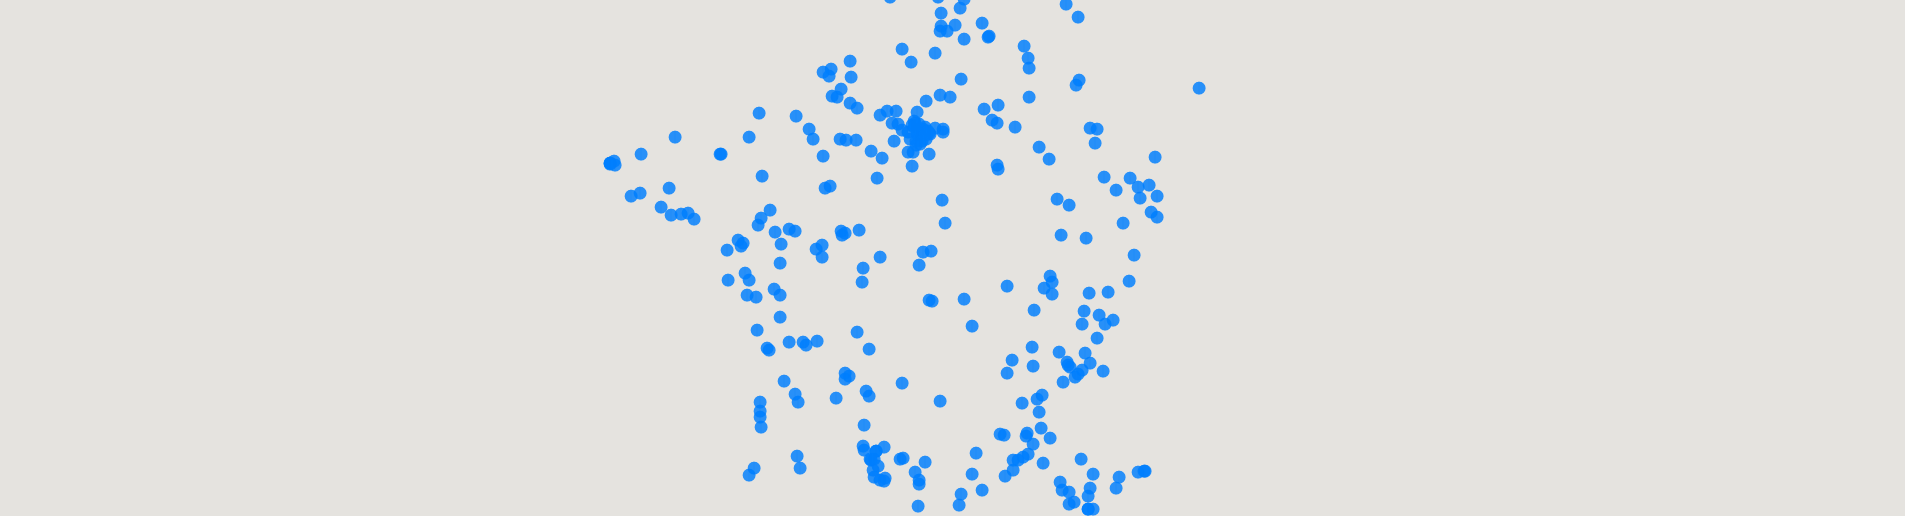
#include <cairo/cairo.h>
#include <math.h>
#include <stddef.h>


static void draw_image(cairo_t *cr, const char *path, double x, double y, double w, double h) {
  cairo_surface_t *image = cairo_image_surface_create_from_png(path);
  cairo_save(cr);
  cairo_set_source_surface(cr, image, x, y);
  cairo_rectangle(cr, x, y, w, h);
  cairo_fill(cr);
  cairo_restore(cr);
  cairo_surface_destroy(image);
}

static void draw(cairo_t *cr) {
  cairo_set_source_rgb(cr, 229 / 255.0, 227 / 255.0, 223 / 255.0);
  cairo_paint(cr);
  draw_image(cr, "images/1.png", 752, 106, 62, 21);
  draw_image(cr, "images/2.png", 814, 0, 256, 127);
  draw_image(cr, "images/3.png", 1070, 0, 136, 127);
  draw_image(cr, "images/4.png", 603, 127, 211, 256);
  draw_image(cr, "images/5.png", 814, 127, 256, 256);
  draw_image(cr, "images/6.png", 1070, 127, 94, 256);
  draw_image(cr, "images/7.png", 742, 383, 65, 99);
  draw_image(cr, "images/8.png", 829, 383, 241, 130);
  draw_image(cr, "images/9.png", 1070, 383, 82, 133);
}

int main(void) {
  cairo_surface_t *surface = cairo_image_surface_create(CAIRO_FORMAT_RGB24, 1905, 516);
  cairo_t *cr = cairo_create(surface);
  cairo_font_options_t *options = cairo_font_options_create();
  cairo_font_options_set_hint_metrics(options, CAIRO_HINT_METRICS_OFF);
  cairo_font_options_set_hint_style(options, CAIRO_HINT_STYLE_NONE);
  cairo_set_font_options(cr, options);
  cairo_set_miter_limit(cr, 4);
  draw(cr);
  cairo_surface_write_to_png(surface, "out.png");
  cairo_font_options_destroy(options);
  cairo_destroy(cr);
  cairo_surface_destroy(surface);
  return 0;
}
